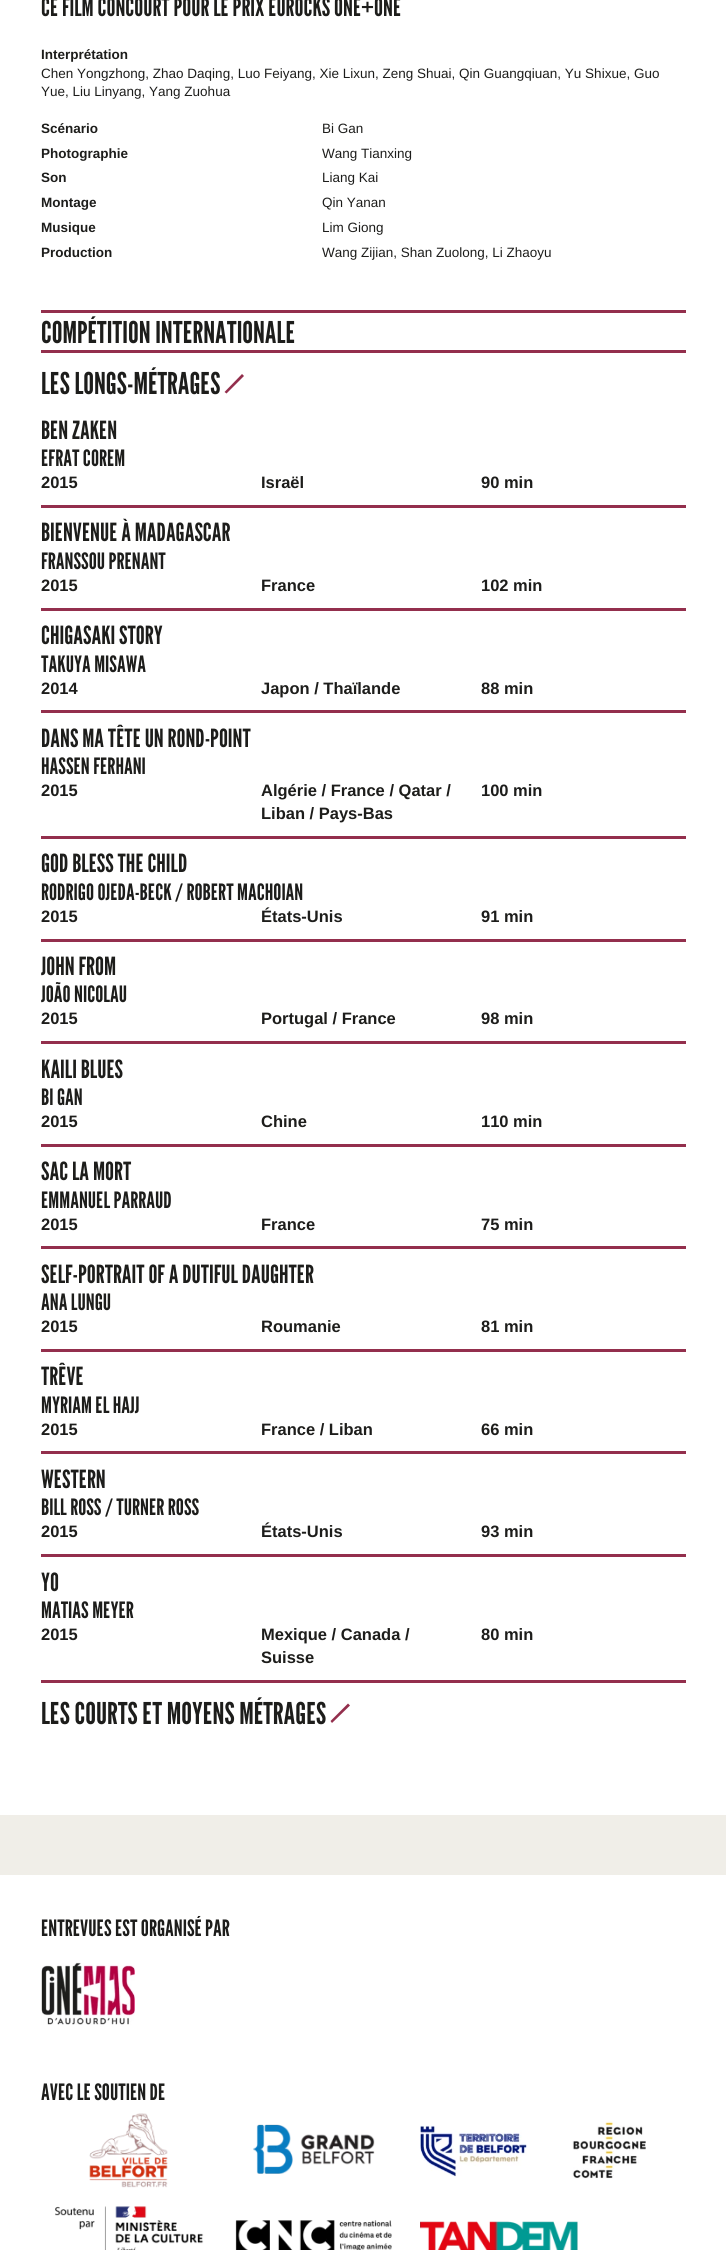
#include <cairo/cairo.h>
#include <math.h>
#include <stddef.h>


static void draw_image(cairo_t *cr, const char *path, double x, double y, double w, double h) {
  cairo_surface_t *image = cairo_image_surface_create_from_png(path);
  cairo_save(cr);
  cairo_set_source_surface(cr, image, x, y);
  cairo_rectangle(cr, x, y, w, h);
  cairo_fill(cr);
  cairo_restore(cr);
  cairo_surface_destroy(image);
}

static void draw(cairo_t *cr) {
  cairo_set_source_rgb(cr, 1, 1, 1);
  cairo_paint(cr);
  cairo_set_source_rgb(cr, 147 / 255.0, 47 / 255.0, 77 / 255.0);
  cairo_rectangle(cr, 41, 310, 645, 3);
  cairo_fill(cr);
  cairo_rectangle(cr, 41, 350, 645, 3);
  cairo_fill(cr);
  cairo_new_path(cr);
  cairo_move_to(cr, 224.5, 392);
  cairo_line_to(cr, 242, 374);
  cairo_line_to(cr, 244, 376);
  cairo_line_to(cr, 226.5, 393.5);
  cairo_close_path(cr);
  cairo_fill(cr);
  cairo_rectangle(cr, 41, 505, 645, 3);
  cairo_fill(cr);
  cairo_rectangle(cr, 41, 608, 645, 3);
  cairo_fill(cr);
  cairo_rectangle(cr, 41, 710, 645, 3);
  cairo_fill(cr);
  cairo_rectangle(cr, 41, 836, 645, 3);
  cairo_fill(cr);
  cairo_rectangle(cr, 41, 939, 645, 3);
  cairo_fill(cr);
  cairo_rectangle(cr, 41, 1041, 645, 3);
  cairo_fill(cr);
  cairo_rectangle(cr, 41, 1144, 645, 3);
  cairo_fill(cr);
  cairo_rectangle(cr, 41, 1246, 645, 3);
  cairo_fill(cr);
  cairo_rectangle(cr, 41, 1349, 645, 3);
  cairo_fill(cr);
  cairo_rectangle(cr, 41, 1451, 645, 3);
  cairo_fill(cr);
  cairo_rectangle(cr, 41, 1554, 645, 3);
  cairo_fill(cr);
  cairo_rectangle(cr, 41, 1680, 645, 3);
  cairo_fill(cr);
  cairo_new_path(cr);
  cairo_move_to(cr, 330.5, 1721);
  cairo_line_to(cr, 348, 1703.5);
  cairo_line_to(cr, 350, 1705.5);
  cairo_line_to(cr, 332, 1723);
  cairo_close_path(cr);
  cairo_fill(cr);
  cairo_set_source_rgb(cr, 240 / 255.0, 238 / 255.0, 232 / 255.0);
  cairo_rectangle(cr, 0, 1815, 726, 60);
  cairo_fill(cr);
  draw_image(cr, "images/1.png", 41, 1962, 94, 63);
  draw_image(cr, "images/2.png", 89, 2113, 79, 75);
  draw_image(cr, "images/3.png", 253, 2124, 122, 50);
  draw_image(cr, "images/4.png", 420, 2125, 107, 52);
  draw_image(cr, "images/5.png", 572, 2121, 74, 58);
  draw_image(cr, "images/6.png", 55, 2206, 149, 44);
  draw_image(cr, "images/7.png", 235, 2220, 157, 30);
  draw_image(cr, "images/8.png", 420, 2221, 158, 29);
  cairo_select_font_face(cr, "League Gothic", CAIRO_FONT_SLANT_NORMAL, CAIRO_FONT_WEIGHT_NORMAL);
  cairo_set_font_size(cr, 25);
  cairo_set_source_rgb(cr, 29 / 255.0, 29 / 255.0, 27 / 255.0);
  cairo_move_to(cr, 41, 16);
  cairo_show_text(cr, "CE FILM CONCOURT POUR LE PRIX EUROCKS ONE+ONE");
  cairo_select_font_face(cr, "Liberation Sans", CAIRO_FONT_SLANT_NORMAL, CAIRO_FONT_WEIGHT_BOLD);
  cairo_set_font_size(cr, 13.5);
  cairo_move_to(cr, 41, 59);
  cairo_show_text(cr, "Interprétation");
  cairo_select_font_face(cr, "Liberation Sans", CAIRO_FONT_SLANT_NORMAL, CAIRO_FONT_WEIGHT_NORMAL);
  cairo_move_to(cr, 41, 78);
  cairo_show_text(cr, "Chen Yongzhong, Zhao Daqing, Luo Feiyang, Xie Lixun, Zeng Shuai, Qin Guangqiuan, Yu Shixue, Guo");
  cairo_move_to(cr, 41, 96);
  cairo_show_text(cr, "Yue, Liu Linyang, Yang Zuohua");
  cairo_select_font_face(cr, "Liberation Sans", CAIRO_FONT_SLANT_NORMAL, CAIRO_FONT_WEIGHT_BOLD);
  cairo_move_to(cr, 41, 133);
  cairo_show_text(cr, "Scénario");
  cairo_select_font_face(cr, "Liberation Sans", CAIRO_FONT_SLANT_NORMAL, CAIRO_FONT_WEIGHT_NORMAL);
  cairo_move_to(cr, 322, 133);
  cairo_show_text(cr, "Bi Gan");
  cairo_select_font_face(cr, "Liberation Sans", CAIRO_FONT_SLANT_NORMAL, CAIRO_FONT_WEIGHT_BOLD);
  cairo_move_to(cr, 41, 158);
  cairo_show_text(cr, "Photographie");
  cairo_select_font_face(cr, "Liberation Sans", CAIRO_FONT_SLANT_NORMAL, CAIRO_FONT_WEIGHT_NORMAL);
  cairo_move_to(cr, 322, 158);
  cairo_show_text(cr, "Wang Tianxing");
  cairo_select_font_face(cr, "Liberation Sans", CAIRO_FONT_SLANT_NORMAL, CAIRO_FONT_WEIGHT_BOLD);
  cairo_move_to(cr, 41, 182);
  cairo_show_text(cr, "Son");
  cairo_select_font_face(cr, "Liberation Sans", CAIRO_FONT_SLANT_NORMAL, CAIRO_FONT_WEIGHT_NORMAL);
  cairo_move_to(cr, 322, 182);
  cairo_show_text(cr, "Liang Kai");
  cairo_select_font_face(cr, "Liberation Sans", CAIRO_FONT_SLANT_NORMAL, CAIRO_FONT_WEIGHT_BOLD);
  cairo_move_to(cr, 41, 207);
  cairo_show_text(cr, "Montage");
  cairo_select_font_face(cr, "Liberation Sans", CAIRO_FONT_SLANT_NORMAL, CAIRO_FONT_WEIGHT_NORMAL);
  cairo_move_to(cr, 322, 207);
  cairo_show_text(cr, "Qin Yanan");
  cairo_select_font_face(cr, "Liberation Sans", CAIRO_FONT_SLANT_NORMAL, CAIRO_FONT_WEIGHT_BOLD);
  cairo_move_to(cr, 41, 232);
  cairo_show_text(cr, "Musique");
  cairo_select_font_face(cr, "Liberation Sans", CAIRO_FONT_SLANT_NORMAL, CAIRO_FONT_WEIGHT_NORMAL);
  cairo_move_to(cr, 322, 232);
  cairo_show_text(cr, "Lim Giong");
  cairo_select_font_face(cr, "Liberation Sans", CAIRO_FONT_SLANT_NORMAL, CAIRO_FONT_WEIGHT_BOLD);
  cairo_move_to(cr, 41, 257);
  cairo_show_text(cr, "Production");
  cairo_select_font_face(cr, "Liberation Sans", CAIRO_FONT_SLANT_NORMAL, CAIRO_FONT_WEIGHT_NORMAL);
  cairo_move_to(cr, 322, 257);
  cairo_show_text(cr, "Wang Zijian, Shan Zuolong, Li Zhaoyu");
  cairo_select_font_face(cr, "League Gothic", CAIRO_FONT_SLANT_NORMAL, CAIRO_FONT_WEIGHT_NORMAL);
  cairo_set_font_size(cr, 30);
  cairo_move_to(cr, 41, 343);
  cairo_show_text(cr, "COMPÉTITION INTERNATIONALE");
  cairo_move_to(cr, 41, 394);
  cairo_show_text(cr, "LES LONGS-MÉTRAGES");
  cairo_set_font_size(cr, 25);
  cairo_move_to(cr, 41, 439);
  cairo_show_text(cr, "BEN ZAKEN");
  cairo_set_font_size(cr, 22.5);
  cairo_move_to(cr, 41, 466);
  cairo_show_text(cr, "EFRAT COREM");
  cairo_select_font_face(cr, "Liberation Sans", CAIRO_FONT_SLANT_NORMAL, CAIRO_FONT_WEIGHT_BOLD);
  cairo_set_font_size(cr, 16.5);
  cairo_move_to(cr, 41, 488);
  cairo_show_text(cr, "2015");
  cairo_move_to(cr, 261, 488);
  cairo_show_text(cr, "Israël");
  cairo_move_to(cr, 481, 488);
  cairo_show_text(cr, "90 min");
  cairo_select_font_face(cr, "League Gothic", CAIRO_FONT_SLANT_NORMAL, CAIRO_FONT_WEIGHT_NORMAL);
  cairo_set_font_size(cr, 25);
  cairo_move_to(cr, 41, 541);
  cairo_show_text(cr, "BIENVENUE À MADAGASCAR");
  cairo_set_font_size(cr, 22.5);
  cairo_move_to(cr, 41, 569);
  cairo_show_text(cr, "FRANSSOU PRENANT");
  cairo_select_font_face(cr, "Liberation Sans", CAIRO_FONT_SLANT_NORMAL, CAIRO_FONT_WEIGHT_BOLD);
  cairo_set_font_size(cr, 16.5);
  cairo_move_to(cr, 41, 591);
  cairo_show_text(cr, "2015");
  cairo_move_to(cr, 261, 591);
  cairo_show_text(cr, "France");
  cairo_move_to(cr, 481, 591);
  cairo_show_text(cr, "102 min");
  cairo_select_font_face(cr, "League Gothic", CAIRO_FONT_SLANT_NORMAL, CAIRO_FONT_WEIGHT_NORMAL);
  cairo_set_font_size(cr, 25);
  cairo_move_to(cr, 41, 644);
  cairo_show_text(cr, "CHIGASAKI STORY");
  cairo_set_font_size(cr, 22.5);
  cairo_move_to(cr, 41, 672);
  cairo_show_text(cr, "TAKUYA MISAWA");
  cairo_select_font_face(cr, "Liberation Sans", CAIRO_FONT_SLANT_NORMAL, CAIRO_FONT_WEIGHT_BOLD);
  cairo_set_font_size(cr, 16.5);
  cairo_move_to(cr, 41, 694);
  cairo_show_text(cr, "2014");
  cairo_move_to(cr, 261, 694);
  cairo_show_text(cr, "Japon / Thaïlande");
  cairo_move_to(cr, 481, 694);
  cairo_show_text(cr, "88 min");
  cairo_select_font_face(cr, "League Gothic", CAIRO_FONT_SLANT_NORMAL, CAIRO_FONT_WEIGHT_NORMAL);
  cairo_set_font_size(cr, 25);
  cairo_move_to(cr, 41, 747);
  cairo_show_text(cr, "DANS MA TÊTE UN ROND-POINT");
  cairo_set_font_size(cr, 22.5);
  cairo_move_to(cr, 41, 774);
  cairo_show_text(cr, "HASSEN FERHANI");
  cairo_select_font_face(cr, "Liberation Sans", CAIRO_FONT_SLANT_NORMAL, CAIRO_FONT_WEIGHT_BOLD);
  cairo_set_font_size(cr, 16.5);
  cairo_move_to(cr, 41, 796);
  cairo_show_text(cr, "2015");
  cairo_move_to(cr, 261, 796);
  cairo_show_text(cr, "Algérie / France / Qatar /");
  cairo_move_to(cr, 261, 819);
  cairo_show_text(cr, "Liban / Pays-Bas");
  cairo_move_to(cr, 481, 796);
  cairo_show_text(cr, "100 min");
  cairo_select_font_face(cr, "League Gothic", CAIRO_FONT_SLANT_NORMAL, CAIRO_FONT_WEIGHT_NORMAL);
  cairo_set_font_size(cr, 25);
  cairo_move_to(cr, 41, 872);
  cairo_show_text(cr, "GOD BLESS THE CHILD");
  cairo_set_font_size(cr, 22.5);
  cairo_move_to(cr, 41, 900);
  cairo_show_text(cr, "RODRIGO OJEDA-BECK / ROBERT MACHOIAN");
  cairo_select_font_face(cr, "Liberation Sans", CAIRO_FONT_SLANT_NORMAL, CAIRO_FONT_WEIGHT_BOLD);
  cairo_set_font_size(cr, 16.5);
  cairo_move_to(cr, 41, 922);
  cairo_show_text(cr, "2015");
  cairo_move_to(cr, 261, 922);
  cairo_show_text(cr, "États-Unis");
  cairo_move_to(cr, 481, 922);
  cairo_show_text(cr, "91 min");
  cairo_select_font_face(cr, "League Gothic", CAIRO_FONT_SLANT_NORMAL, CAIRO_FONT_WEIGHT_NORMAL);
  cairo_set_font_size(cr, 25);
  cairo_move_to(cr, 41, 975);
  cairo_show_text(cr, "JOHN FROM");
  cairo_set_font_size(cr, 22.5);
  cairo_move_to(cr, 41, 1002);
  cairo_show_text(cr, "JOÃO NICOLAU");
  cairo_select_font_face(cr, "Liberation Sans", CAIRO_FONT_SLANT_NORMAL, CAIRO_FONT_WEIGHT_BOLD);
  cairo_set_font_size(cr, 16.5);
  cairo_move_to(cr, 41, 1024);
  cairo_show_text(cr, "2015");
  cairo_move_to(cr, 261, 1024);
  cairo_show_text(cr, "Portugal / France");
  cairo_move_to(cr, 481, 1024);
  cairo_show_text(cr, "98 min");
  cairo_select_font_face(cr, "League Gothic", CAIRO_FONT_SLANT_NORMAL, CAIRO_FONT_WEIGHT_NORMAL);
  cairo_set_font_size(cr, 25);
  cairo_move_to(cr, 41, 1078);
  cairo_show_text(cr, "KAILI BLUES");
  cairo_set_font_size(cr, 22.5);
  cairo_move_to(cr, 41, 1105);
  cairo_show_text(cr, "BI GAN");
  cairo_select_font_face(cr, "Liberation Sans", CAIRO_FONT_SLANT_NORMAL, CAIRO_FONT_WEIGHT_BOLD);
  cairo_set_font_size(cr, 16.5);
  cairo_move_to(cr, 41, 1127);
  cairo_show_text(cr, "2015");
  cairo_move_to(cr, 261, 1127);
  cairo_show_text(cr, "Chine");
  cairo_move_to(cr, 481, 1127);
  cairo_show_text(cr, "110 min");
  cairo_select_font_face(cr, "League Gothic", CAIRO_FONT_SLANT_NORMAL, CAIRO_FONT_WEIGHT_NORMAL);
  cairo_set_font_size(cr, 25);
  cairo_move_to(cr, 41, 1180);
  cairo_show_text(cr, "SAC LA MORT");
  cairo_set_font_size(cr, 22.5);
  cairo_move_to(cr, 41, 1208);
  cairo_show_text(cr, "EMMANUEL PARRAUD");
  cairo_select_font_face(cr, "Liberation Sans", CAIRO_FONT_SLANT_NORMAL, CAIRO_FONT_WEIGHT_BOLD);
  cairo_set_font_size(cr, 16.5);
  cairo_move_to(cr, 41, 1230);
  cairo_show_text(cr, "2015");
  cairo_move_to(cr, 261, 1230);
  cairo_show_text(cr, "France");
  cairo_move_to(cr, 481, 1230);
  cairo_show_text(cr, "75 min");
  cairo_select_font_face(cr, "League Gothic", CAIRO_FONT_SLANT_NORMAL, CAIRO_FONT_WEIGHT_NORMAL);
  cairo_set_font_size(cr, 25);
  cairo_move_to(cr, 41, 1283);
  cairo_show_text(cr, "SELF-PORTRAIT OF A DUTIFUL DAUGHTER");
  cairo_set_font_size(cr, 22.5);
  cairo_move_to(cr, 41, 1310);
  cairo_show_text(cr, "ANA LUNGU");
  cairo_select_font_face(cr, "Liberation Sans", CAIRO_FONT_SLANT_NORMAL, CAIRO_FONT_WEIGHT_BOLD);
  cairo_set_font_size(cr, 16.5);
  cairo_move_to(cr, 41, 1332);
  cairo_show_text(cr, "2015");
  cairo_move_to(cr, 261, 1332);
  cairo_show_text(cr, "Roumanie");
  cairo_move_to(cr, 481, 1332);
  cairo_show_text(cr, "81 min");
  cairo_select_font_face(cr, "League Gothic", CAIRO_FONT_SLANT_NORMAL, CAIRO_FONT_WEIGHT_NORMAL);
  cairo_set_font_size(cr, 25);
  cairo_move_to(cr, 41, 1385);
  cairo_show_text(cr, "TRÊVE");
  cairo_set_font_size(cr, 22.5);
  cairo_move_to(cr, 41, 1413);
  cairo_show_text(cr, "MYRIAM EL HAJJ");
  cairo_select_font_face(cr, "Liberation Sans", CAIRO_FONT_SLANT_NORMAL, CAIRO_FONT_WEIGHT_BOLD);
  cairo_set_font_size(cr, 16.5);
  cairo_move_to(cr, 41, 1435);
  cairo_show_text(cr, "2015");
  cairo_move_to(cr, 261, 1435);
  cairo_show_text(cr, "France / Liban");
  cairo_move_to(cr, 481, 1435);
  cairo_show_text(cr, "66 min");
  cairo_select_font_face(cr, "League Gothic", CAIRO_FONT_SLANT_NORMAL, CAIRO_FONT_WEIGHT_NORMAL);
  cairo_set_font_size(cr, 25);
  cairo_move_to(cr, 41, 1488);
  cairo_show_text(cr, "WESTERN");
  cairo_set_font_size(cr, 22.5);
  cairo_move_to(cr, 41, 1515);
  cairo_show_text(cr, "BILL ROSS / TURNER ROSS");
  cairo_select_font_face(cr, "Liberation Sans", CAIRO_FONT_SLANT_NORMAL, CAIRO_FONT_WEIGHT_BOLD);
  cairo_set_font_size(cr, 16.5);
  cairo_move_to(cr, 41, 1537);
  cairo_show_text(cr, "2015");
  cairo_move_to(cr, 261, 1537);
  cairo_show_text(cr, "États-Unis");
  cairo_move_to(cr, 481, 1537);
  cairo_show_text(cr, "93 min");
  cairo_select_font_face(cr, "League Gothic", CAIRO_FONT_SLANT_NORMAL, CAIRO_FONT_WEIGHT_NORMAL);
  cairo_set_font_size(cr, 25);
  cairo_move_to(cr, 41, 1591);
  cairo_show_text(cr, "YO");
  cairo_set_font_size(cr, 22.5);
  cairo_move_to(cr, 41, 1618);
  cairo_show_text(cr, "MATIAS MEYER");
  cairo_select_font_face(cr, "Liberation Sans", CAIRO_FONT_SLANT_NORMAL, CAIRO_FONT_WEIGHT_BOLD);
  cairo_set_font_size(cr, 16.5);
  cairo_move_to(cr, 41, 1640);
  cairo_show_text(cr, "2015");
  cairo_move_to(cr, 261, 1640);
  cairo_show_text(cr, "Mexique / Canada /");
  cairo_move_to(cr, 261, 1663);
  cairo_show_text(cr, "Suisse");
  cairo_move_to(cr, 481, 1640);
  cairo_show_text(cr, "80 min");
  cairo_select_font_face(cr, "League Gothic", CAIRO_FONT_SLANT_NORMAL, CAIRO_FONT_WEIGHT_NORMAL);
  cairo_set_font_size(cr, 30);
  cairo_move_to(cr, 41, 1724);
  cairo_show_text(cr, "LES COURTS ET MOYENS MÉTRAGES");
  cairo_set_font_size(cr, 22.5);
  cairo_move_to(cr, 41, 1936);
  cairo_show_text(cr, "ENTREVUES EST ORGANISÉ PAR");
  cairo_move_to(cr, 41, 2100);
  cairo_show_text(cr, "AVEC LE SOUTIEN DE");
}

int main(void) {
  cairo_surface_t *surface = cairo_image_surface_create(CAIRO_FORMAT_RGB24, 726, 2250);
  cairo_t *cr = cairo_create(surface);
  cairo_font_options_t *options = cairo_font_options_create();
  cairo_font_options_set_hint_metrics(options, CAIRO_HINT_METRICS_OFF);
  cairo_font_options_set_hint_style(options, CAIRO_HINT_STYLE_NONE);
  cairo_set_font_options(cr, options);
  cairo_set_miter_limit(cr, 4);
  draw(cr);
  cairo_surface_write_to_png(surface, "out.png");
  cairo_font_options_destroy(options);
  cairo_destroy(cr);
  cairo_surface_destroy(surface);
  return 0;
}
